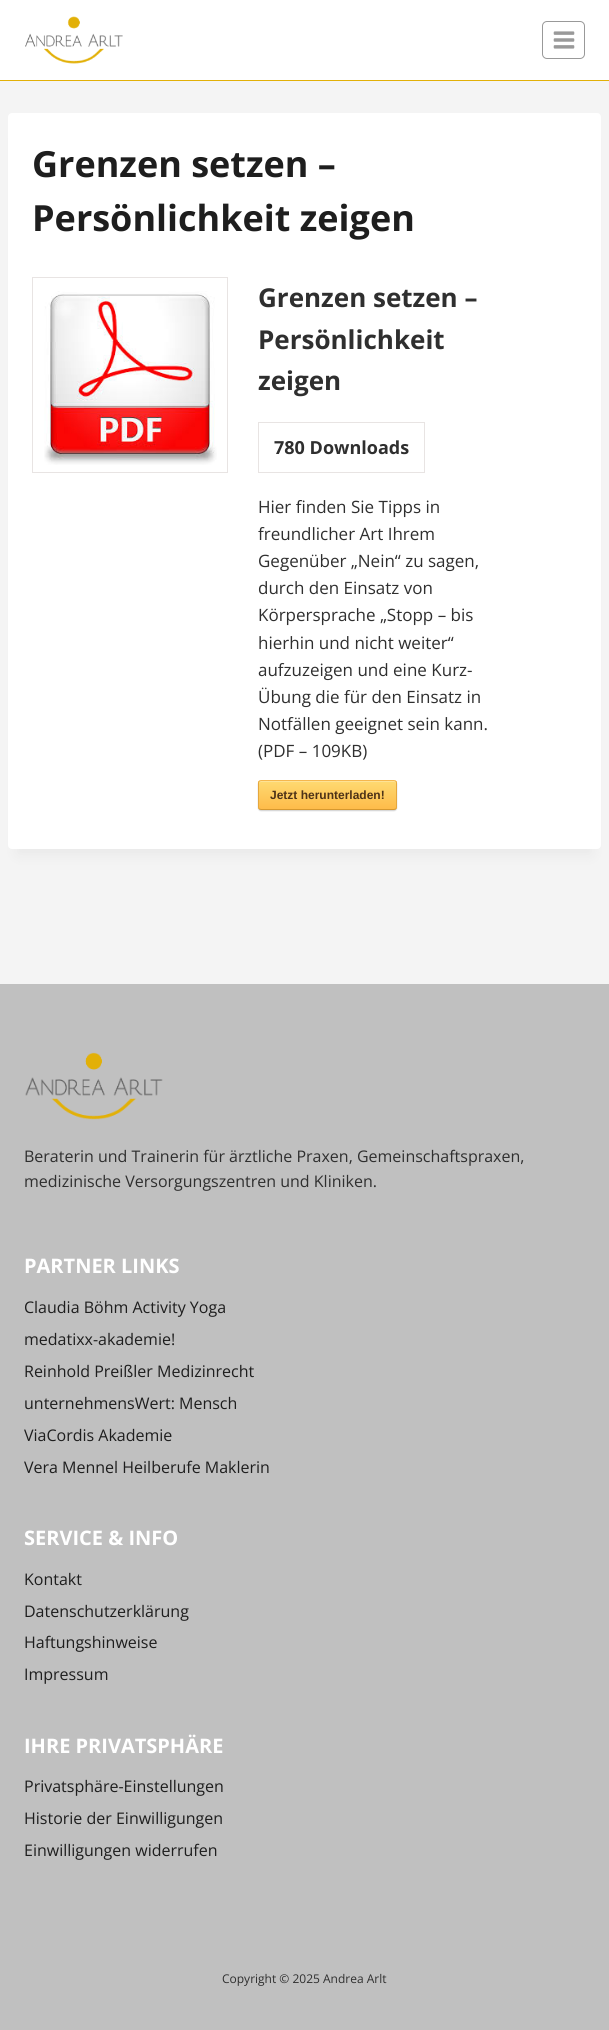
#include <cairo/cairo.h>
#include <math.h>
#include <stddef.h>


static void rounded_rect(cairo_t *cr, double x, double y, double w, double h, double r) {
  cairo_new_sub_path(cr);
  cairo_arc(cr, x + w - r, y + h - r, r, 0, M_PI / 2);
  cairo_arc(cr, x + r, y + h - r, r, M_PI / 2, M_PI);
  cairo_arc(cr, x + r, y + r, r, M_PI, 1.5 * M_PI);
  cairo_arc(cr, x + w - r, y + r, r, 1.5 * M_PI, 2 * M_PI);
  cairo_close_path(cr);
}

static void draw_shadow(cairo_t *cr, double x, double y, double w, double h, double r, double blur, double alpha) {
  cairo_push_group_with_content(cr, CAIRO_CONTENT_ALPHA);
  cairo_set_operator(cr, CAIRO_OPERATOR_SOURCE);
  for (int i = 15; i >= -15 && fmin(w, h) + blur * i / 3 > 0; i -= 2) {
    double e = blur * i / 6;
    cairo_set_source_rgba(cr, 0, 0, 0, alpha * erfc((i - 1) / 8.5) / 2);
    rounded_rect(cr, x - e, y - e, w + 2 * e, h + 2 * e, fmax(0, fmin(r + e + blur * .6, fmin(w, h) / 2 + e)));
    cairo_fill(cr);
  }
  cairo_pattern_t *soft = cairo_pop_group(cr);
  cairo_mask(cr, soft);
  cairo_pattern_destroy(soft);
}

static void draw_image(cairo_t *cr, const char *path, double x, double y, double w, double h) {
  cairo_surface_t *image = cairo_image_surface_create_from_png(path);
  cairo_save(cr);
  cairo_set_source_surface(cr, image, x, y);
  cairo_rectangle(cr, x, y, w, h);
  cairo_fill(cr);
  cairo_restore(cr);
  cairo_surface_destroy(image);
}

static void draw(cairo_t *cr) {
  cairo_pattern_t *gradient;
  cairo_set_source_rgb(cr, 244 / 255.0, 244 / 255.0, 244 / 255.0);
  cairo_paint(cr);
  cairo_set_source_rgb(cr, 1, 1, 1);
  cairo_rectangle(cr, 0, 0, 609, 80);
  cairo_fill(cr);
  cairo_set_source_rgb(cr, 226 / 255.0, 176 / 255.0, 7 / 255.0);
  cairo_rectangle(cr, 0, 80, 609, 1);
  cairo_fill(cr);
  draw_image(cr, "images/1.png", 25, 16, 98, 48);
  rounded_rect(cr, 542.5, 21.5, 42, 37, 4.5);
  cairo_set_source_rgb(cr, 153 / 255.0, 153 / 255.0, 153 / 255.0);
  cairo_set_line_width(cr, 1);
  cairo_stroke(cr);
  draw_image(cr, "images/2.png", 553, 31, 22, 18);
  cairo_set_source_rgb(cr, 0, 0, 0);
  draw_shadow(cr, 18, 138, 573, 716, 0, 7.5, 0.05);
  cairo_set_source_rgb(cr, 1, 1, 1);
  rounded_rect(cr, 8, 113, 593, 736, 4);
  cairo_fill(cr);
  cairo_rectangle(cr, 32.5, 277.5, 195, 195);
  cairo_set_source_rgb(cr, 232 / 255.0, 228 / 255.0, 227 / 255.0);
  cairo_stroke(cr);
  draw_image(cr, "images/3.png", 44, 291, 173, 174);
  cairo_rectangle(cr, 258.5, 422.5, 166, 50);
  cairo_stroke(cr);
  cairo_set_source_rgb(cr, 211 / 255.0, 211 / 255.0, 211 / 255.0);
  draw_shadow(cr, 258, 781, 139, 30, 3, 0.5, 1);
  cairo_save(cr);
  rounded_rect(cr, 258, 780, 139, 30, 3);
  cairo_clip(cr);
  gradient = cairo_pattern_create_linear(259, 781, 259, 809);
  cairo_pattern_add_color_stop_rgba(gradient, 0, 254 / 255.0, 218 / 255.0, 113 / 255.0, 1);
  cairo_pattern_add_color_stop_rgba(gradient, 1, 254 / 255.0, 187 / 255.0, 74 / 255.0, 1);
  cairo_set_source(cr, gradient);
  cairo_pattern_destroy(gradient);
  cairo_rectangle(cr, 258, 781, 139, 28);
  cairo_fill(cr);
  cairo_restore(cr);
  cairo_set_source_rgb(cr, 254 / 255.0, 227 / 255.0, 149 / 255.0);
  cairo_new_path(cr);
  cairo_move_to(cr, 261, 782);
  cairo_line_to(cr, 394, 782);
  cairo_curve_to(cr, 395, 782, 396, 783, 396, 784);
  cairo_curve_to(cr, 396, 783, 396, 781, 394, 781);
  cairo_line_to(cr, 261, 781);
  cairo_curve_to(cr, 259, 781, 259, 783, 259, 784);
  cairo_curve_to(cr, 259, 783, 260, 782, 261, 782);
  cairo_close_path(cr);
  cairo_fill(cr);
  cairo_new_path(cr);
  cairo_move_to(cr, 259, 781);
  cairo_line_to(cr, 261, 780.5);
  cairo_line_to(cr, 394, 780.5);
  cairo_line_to(cr, 396, 781);
  cairo_set_source_rgb(cr, 245 / 255.0, 183 / 255.0, 78 / 255.0);
  cairo_stroke(cr);
  cairo_new_path(cr);
  cairo_move_to(cr, 396, 781);
  cairo_curve_to(cr, 396, 781.5, 396.5, 782.5, 396.5, 783);
  cairo_line_to(cr, 396.5, 807);
  cairo_curve_to(cr, 396.5, 807.5, 396, 808.5, 396, 809);
  cairo_set_source_rgb(cr, 229 / 255.0, 167 / 255.0, 62 / 255.0);
  cairo_stroke(cr);
  cairo_new_path(cr);
  cairo_move_to(cr, 396, 809);
  cairo_line_to(cr, 394, 809.5);
  cairo_line_to(cr, 261, 809.5);
  cairo_line_to(cr, 259, 809);
  cairo_set_source_rgb(cr, 214 / 255.0, 152 / 255.0, 47 / 255.0);
  cairo_stroke(cr);
  cairo_new_path(cr);
  cairo_move_to(cr, 259, 809);
  cairo_curve_to(cr, 259, 808.5, 258.5, 807.5, 258.5, 807);
  cairo_line_to(cr, 258.5, 783);
  cairo_curve_to(cr, 258.5, 782.5, 259, 781.5, 259, 781);
  cairo_set_source_rgb(cr, 229 / 255.0, 167 / 255.0, 62 / 255.0);
  cairo_stroke(cr);
  cairo_set_source_rgb(cr, 192 / 255.0, 192 / 255.0, 192 / 255.0);
  cairo_rectangle(cr, 0, 984, 609, 1046);
  cairo_fill(cr);
  draw_image(cr, "images/4.png", 25, 1052, 138, 68);
  cairo_select_font_face(cr, "Open Sans", CAIRO_FONT_SLANT_NORMAL, CAIRO_FONT_WEIGHT_BOLD);
  cairo_set_font_size(cr, 36);
  cairo_set_source_rgb(cr, 30 / 255.0, 30 / 255.0, 30 / 255.0);
  cairo_move_to(cr, 32, 177);
  cairo_show_text(cr, "Grenzen setzen –");
  cairo_move_to(cr, 32, 231);
  cairo_show_text(cr, "Persönlichkeit zeigen");
  cairo_set_font_size(cr, 26);
  cairo_set_source_rgb(cr, 47 / 255.0, 47 / 255.0, 47 / 255.0);
  cairo_move_to(cr, 258, 307);
  cairo_show_text(cr, "Grenzen setzen –");
  cairo_move_to(cr, 258, 349);
  cairo_show_text(cr, "Persönlichkeit");
  cairo_move_to(cr, 258, 390);
  cairo_show_text(cr, "zeigen");
  cairo_set_font_size(cr, 18);
  cairo_move_to(cr, 274, 454);
  cairo_show_text(cr, "780 Downloads");
  cairo_select_font_face(cr, "Open Sans", CAIRO_FONT_SLANT_NORMAL, CAIRO_FONT_WEIGHT_NORMAL);
  cairo_set_font_size(cr, 17);
  cairo_move_to(cr, 258, 513);
  cairo_show_text(cr, "Hier finden Sie Tipps in");
  cairo_move_to(cr, 258, 540);
  cairo_show_text(cr, "freundlicher Art Ihrem");
  cairo_move_to(cr, 258, 567);
  cairo_show_text(cr, "Gegenüber „Nein“ zu sagen,");
  cairo_move_to(cr, 258, 594);
  cairo_show_text(cr, "durch den Einsatz von");
  cairo_move_to(cr, 258, 621);
  cairo_show_text(cr, "Körpersprache „Stopp – bis");
  cairo_move_to(cr, 258, 649);
  cairo_show_text(cr, "hierhin und nicht weiter“");
  cairo_move_to(cr, 258, 676);
  cairo_show_text(cr, "aufzuzeigen und eine Kurz-");
  cairo_move_to(cr, 258, 703);
  cairo_show_text(cr, "Übung die für den Einsatz in");
  cairo_move_to(cr, 258, 730);
  cairo_show_text(cr, "Notfällen geeignet sein kann.");
  cairo_move_to(cr, 258, 757);
  cairo_show_text(cr, "(PDF – 109KB)");
  cairo_select_font_face(cr, "Liberation Sans", CAIRO_FONT_SLANT_NORMAL, CAIRO_FONT_WEIGHT_BOLD);
  cairo_set_font_size(cr, 12);
  cairo_set_source_rgb(cr, 77 / 255.0, 50 / 255.0, 23 / 255.0);
  cairo_move_to(cr, 270, 799);
  cairo_show_text(cr, "Jetzt herunterladen!");
  cairo_select_font_face(cr, "Open Sans", CAIRO_FONT_SLANT_NORMAL, CAIRO_FONT_WEIGHT_NORMAL);
  cairo_set_font_size(cr, 16);
  cairo_set_source_rgb(cr, 47 / 255.0, 47 / 255.0, 47 / 255.0);
  cairo_move_to(cr, 24, 1162);
  cairo_show_text(cr, "Beraterin und Trainerin für ärztliche Praxen, Gemeinschaftspraxen,");
  cairo_move_to(cr, 24, 1187);
  cairo_show_text(cr, "medizinische Versorgungszentren und Kliniken.");
  cairo_select_font_face(cr, "Open Sans", CAIRO_FONT_SLANT_NORMAL, CAIRO_FONT_WEIGHT_BOLD);
  cairo_set_font_size(cr, 20);
  cairo_set_source_rgb(cr, 1, 1, 1);
  cairo_move_to(cr, 24, 1273);
  cairo_show_text(cr, "PARTNER LINKS");
  cairo_select_font_face(cr, "Open Sans", CAIRO_FONT_SLANT_NORMAL, CAIRO_FONT_WEIGHT_NORMAL);
  cairo_set_font_size(cr, 16);
  cairo_set_source_rgb(cr, 30 / 255.0, 30 / 255.0, 30 / 255.0);
  cairo_move_to(cr, 24, 1313);
  cairo_show_text(cr, "Claudia Böhm Activity Yoga");
  cairo_move_to(cr, 24, 1345);
  cairo_show_text(cr, "medatixx-akademie!");
  cairo_move_to(cr, 24, 1377);
  cairo_show_text(cr, "Reinhold Preißler Medizinrecht");
  cairo_move_to(cr, 24, 1409);
  cairo_show_text(cr, "unternehmensWert: Mensch");
  cairo_move_to(cr, 24, 1441);
  cairo_show_text(cr, "ViaCordis Akademie");
  cairo_move_to(cr, 24, 1473);
  cairo_show_text(cr, "Vera Mennel Heilberufe Maklerin");
  cairo_select_font_face(cr, "Open Sans", CAIRO_FONT_SLANT_NORMAL, CAIRO_FONT_WEIGHT_BOLD);
  cairo_set_font_size(cr, 20);
  cairo_set_source_rgb(cr, 1, 1, 1);
  cairo_move_to(cr, 24, 1545);
  cairo_show_text(cr, "SERVICE & INFO");
  cairo_select_font_face(cr, "Open Sans", CAIRO_FONT_SLANT_NORMAL, CAIRO_FONT_WEIGHT_NORMAL);
  cairo_set_font_size(cr, 16);
  cairo_set_source_rgb(cr, 30 / 255.0, 30 / 255.0, 30 / 255.0);
  cairo_move_to(cr, 24, 1585);
  cairo_show_text(cr, "Kontakt");
  cairo_move_to(cr, 24, 1617);
  cairo_show_text(cr, "Datenschutzerklärung");
  cairo_move_to(cr, 24, 1648);
  cairo_show_text(cr, "Haftungshinweise");
  cairo_move_to(cr, 24, 1680);
  cairo_show_text(cr, "Impressum");
  cairo_select_font_face(cr, "Open Sans", CAIRO_FONT_SLANT_NORMAL, CAIRO_FONT_WEIGHT_BOLD);
  cairo_set_font_size(cr, 20);
  cairo_set_source_rgb(cr, 1, 1, 1);
  cairo_move_to(cr, 24, 1753);
  cairo_show_text(cr, "IHRE PRIVATSPHÄRE");
  cairo_select_font_face(cr, "Open Sans", CAIRO_FONT_SLANT_NORMAL, CAIRO_FONT_WEIGHT_NORMAL);
  cairo_set_font_size(cr, 16);
  cairo_set_source_rgb(cr, 30 / 255.0, 30 / 255.0, 30 / 255.0);
  cairo_move_to(cr, 24, 1792);
  cairo_show_text(cr, "Privatsphäre-Einstellungen");
  cairo_move_to(cr, 24, 1824);
  cairo_show_text(cr, "Historie der Einwilligungen");
  cairo_move_to(cr, 24, 1856);
  cairo_show_text(cr, "Einwilligungen widerrufen");
  cairo_set_font_size(cr, 12);
  cairo_set_source_rgb(cr, 47 / 255.0, 47 / 255.0, 47 / 255.0);
  cairo_move_to(cr, 222, 1983);
  cairo_show_text(cr, "Copyright © 2025 Andrea Arlt");
}

int main(void) {
  cairo_surface_t *surface = cairo_image_surface_create(CAIRO_FORMAT_RGB24, 609, 2030);
  cairo_t *cr = cairo_create(surface);
  cairo_font_options_t *options = cairo_font_options_create();
  cairo_font_options_set_hint_metrics(options, CAIRO_HINT_METRICS_OFF);
  cairo_font_options_set_hint_style(options, CAIRO_HINT_STYLE_NONE);
  cairo_set_font_options(cr, options);
  cairo_set_miter_limit(cr, 4);
  draw(cr);
  cairo_surface_write_to_png(surface, "out.png");
  cairo_font_options_destroy(options);
  cairo_destroy(cr);
  cairo_surface_destroy(surface);
  return 0;
}
